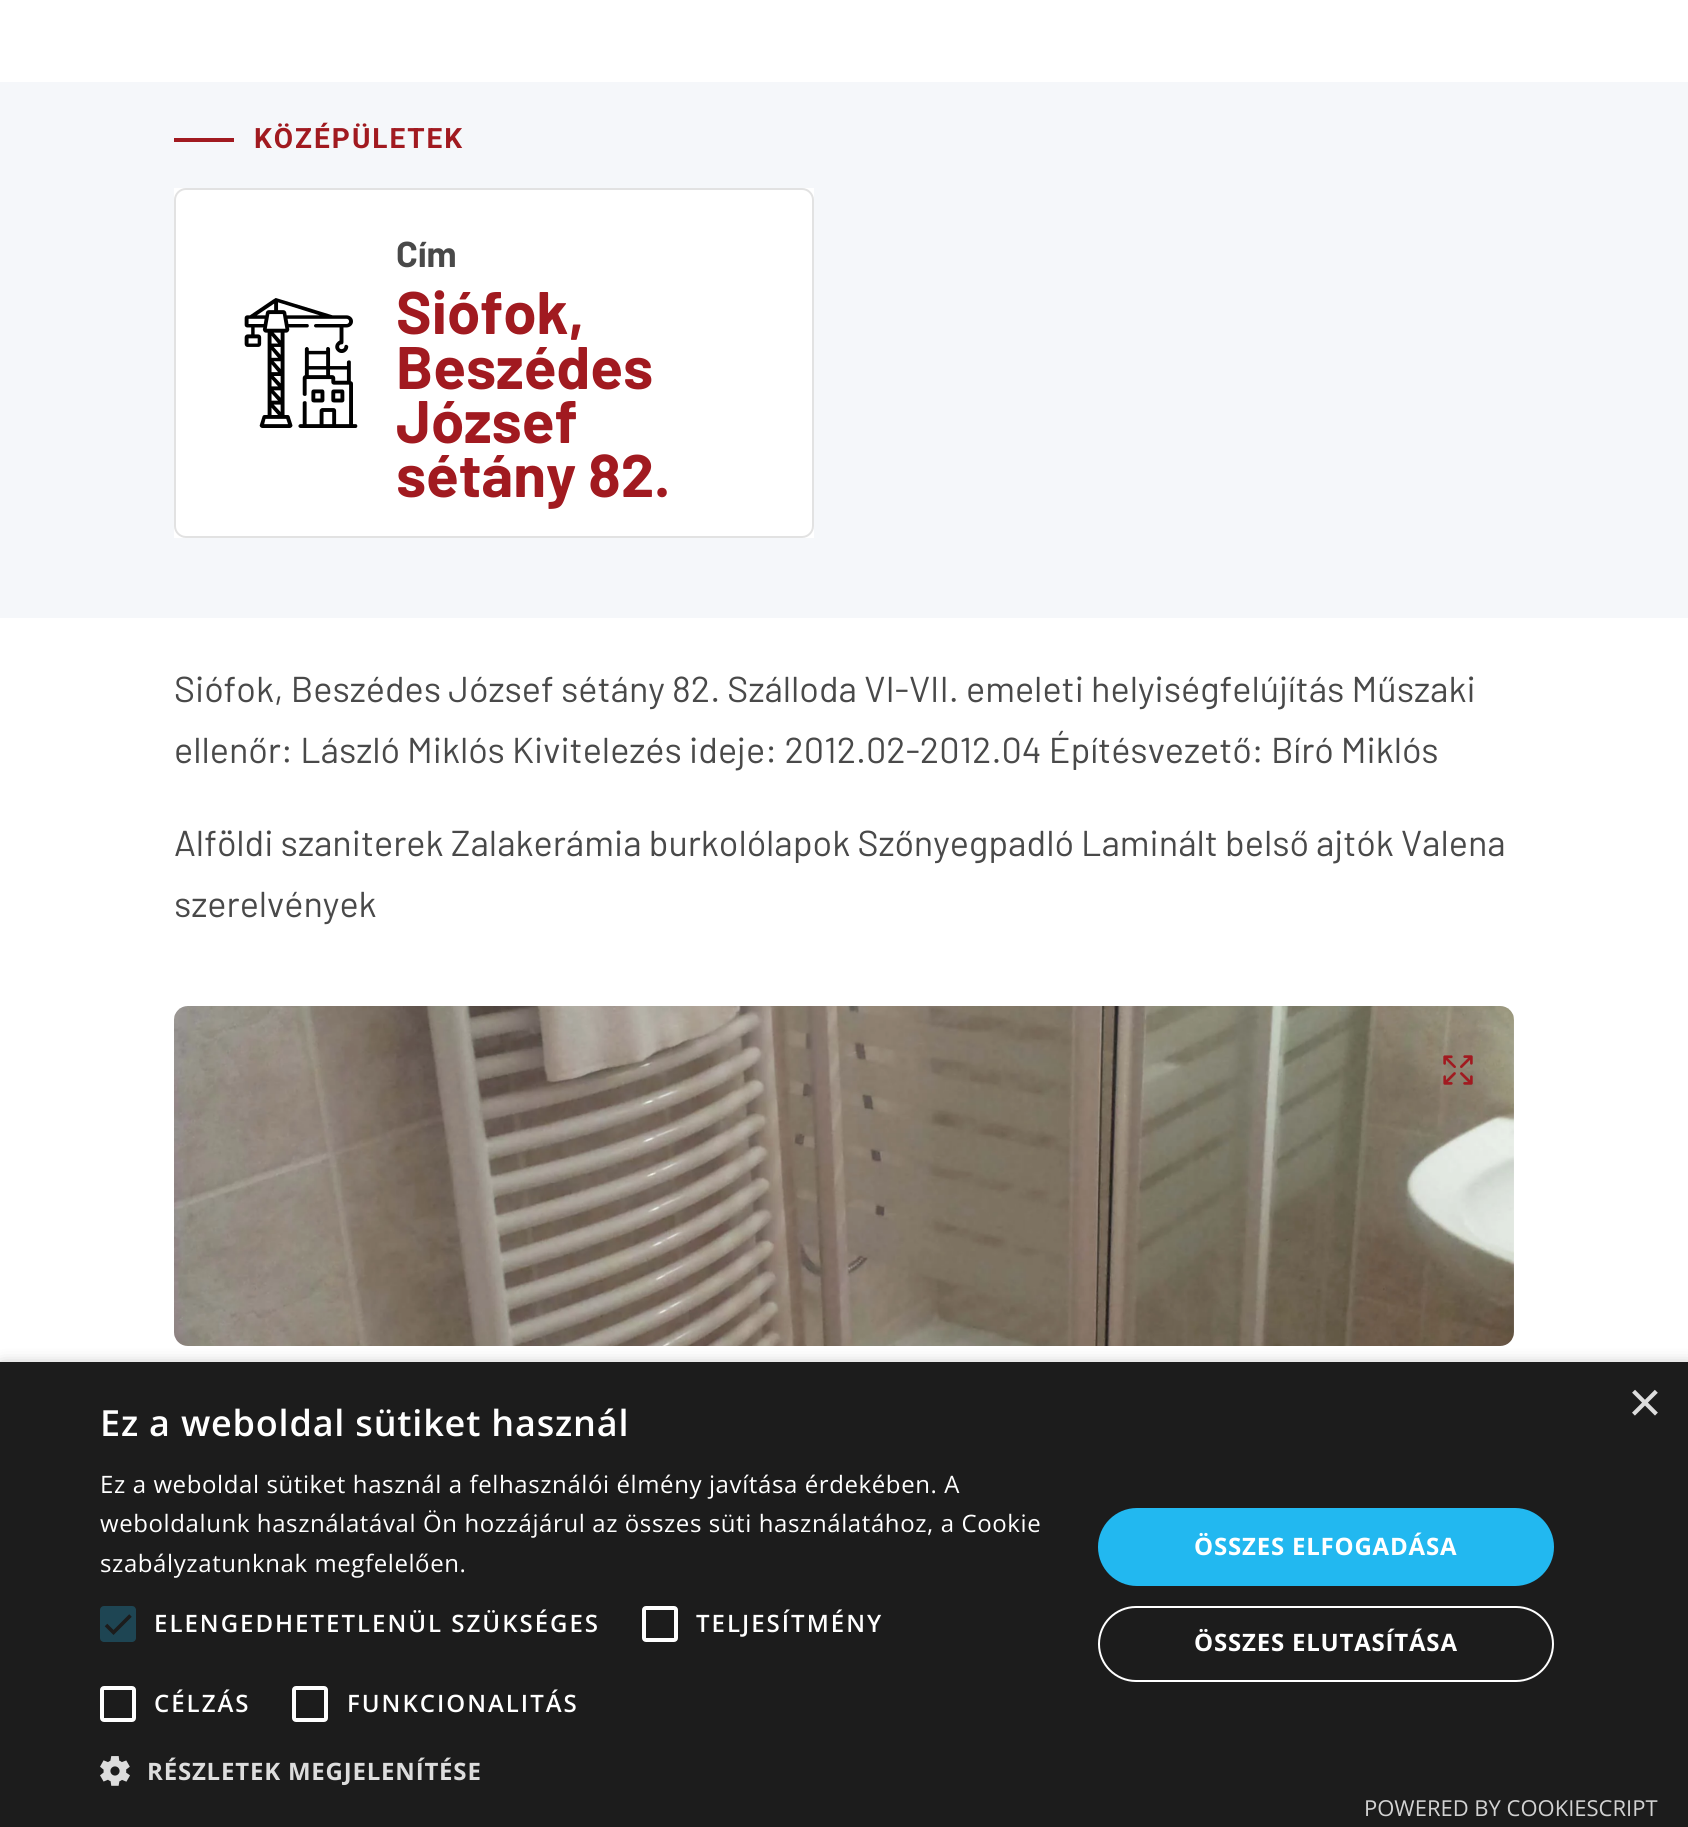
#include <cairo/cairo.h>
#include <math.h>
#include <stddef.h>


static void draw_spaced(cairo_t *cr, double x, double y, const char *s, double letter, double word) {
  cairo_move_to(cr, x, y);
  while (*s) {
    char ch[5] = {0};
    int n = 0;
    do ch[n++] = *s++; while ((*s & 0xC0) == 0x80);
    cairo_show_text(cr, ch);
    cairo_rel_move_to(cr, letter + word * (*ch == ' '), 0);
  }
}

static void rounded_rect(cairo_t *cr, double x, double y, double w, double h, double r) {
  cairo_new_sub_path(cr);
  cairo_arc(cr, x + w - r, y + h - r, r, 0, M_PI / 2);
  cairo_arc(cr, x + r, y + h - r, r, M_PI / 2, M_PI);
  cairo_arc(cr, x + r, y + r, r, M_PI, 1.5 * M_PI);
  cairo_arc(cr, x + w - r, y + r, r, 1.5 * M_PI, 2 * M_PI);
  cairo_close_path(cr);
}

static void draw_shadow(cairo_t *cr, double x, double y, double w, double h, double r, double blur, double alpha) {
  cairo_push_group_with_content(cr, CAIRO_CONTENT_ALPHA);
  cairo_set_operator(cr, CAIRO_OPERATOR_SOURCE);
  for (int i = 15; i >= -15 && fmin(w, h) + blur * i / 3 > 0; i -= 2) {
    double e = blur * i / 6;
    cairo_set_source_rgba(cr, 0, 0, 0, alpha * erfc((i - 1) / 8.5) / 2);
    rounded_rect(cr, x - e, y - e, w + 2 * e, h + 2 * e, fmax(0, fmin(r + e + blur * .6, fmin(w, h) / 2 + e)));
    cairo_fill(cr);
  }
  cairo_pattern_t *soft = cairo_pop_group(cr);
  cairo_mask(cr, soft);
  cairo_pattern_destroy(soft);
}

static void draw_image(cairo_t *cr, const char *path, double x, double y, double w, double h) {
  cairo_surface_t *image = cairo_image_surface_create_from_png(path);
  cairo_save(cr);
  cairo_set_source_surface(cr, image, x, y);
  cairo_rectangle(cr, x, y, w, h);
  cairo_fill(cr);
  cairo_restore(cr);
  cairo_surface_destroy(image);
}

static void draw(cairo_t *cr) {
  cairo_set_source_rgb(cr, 1, 1, 1);
  cairo_paint(cr);
  cairo_set_source_rgb(cr, 245 / 255.0, 247 / 255.0, 250 / 255.0);
  cairo_rectangle(cr, 0, 82, 1688, 536);
  cairo_fill(cr);
  cairo_set_source_rgb(cr, 161 / 255.0, 26 / 255.0, 32 / 255.0);
  cairo_rectangle(cr, 174, 138, 60, 4);
  cairo_fill(cr);
  cairo_set_source_rgb(cr, 1, 1, 1);
  cairo_rectangle(cr, 174, 188, 640, 350);
  cairo_fill(cr);
  rounded_rect(cr, 175, 189, 638, 348, 11);
  cairo_set_source_rgb(cr, 226 / 255.0, 226 / 255.0, 226 / 255.0);
  cairo_stroke(cr);
  draw_image(cr, "images/1.png", 244, 298, 114, 130);
  draw_image(cr, "images/2.png", 174, 1006, 1340, 340);
  draw_image(cr, "images/3.png", 1443, 1055, 30, 30);
  cairo_set_source_rgb(cr, 0, 0, 0);
  draw_shadow(cr, 2, 1366, 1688, 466, 0, 8, 0.35);
  cairo_set_source_rgb(cr, 28 / 255.0, 28 / 255.0, 28 / 255.0);
  cairo_rectangle(cr, 0, 1362, 1688, 465);
  cairo_fill(cr);
  cairo_set_source_rgb(cr, 30 / 255.0, 69 / 255.0, 83 / 255.0);
  rounded_rect(cr, 100, 1606, 36, 36, 4);
  cairo_fill(cr);
  cairo_new_path(cr);
  cairo_move_to(cr, 106, 1625);
  cairo_line_to(cr, 113.5, 1632.5);
  cairo_line_to(cr, 130.5, 1615.5);
  cairo_set_source_rgb(cr, 28 / 255.0, 28 / 255.0, 28 / 255.0);
  cairo_set_line_width(cr, 3.6);
  cairo_stroke(cr);
  rounded_rect(cr, 644, 1608, 32, 32, 2);
  cairo_set_source_rgb(cr, 1, 1, 1);
  cairo_set_line_width(cr, 4);
  cairo_stroke(cr);
  rounded_rect(cr, 102, 1688, 32, 32, 2);
  cairo_stroke(cr);
  rounded_rect(cr, 294, 1688, 32, 32, 2);
  cairo_stroke(cr);
  draw_image(cr, "images/4.png", 100, 1756, 30, 30);
  cairo_set_source_rgb(cr, 34 / 255.0, 184 / 255.0, 240 / 255.0);
  rounded_rect(cr, 1098, 1508, 456, 78, 39);
  cairo_fill(cr);
  rounded_rect(cr, 1099, 1607, 454, 74, 37);
  cairo_set_source_rgb(cr, 1, 1, 1);
  cairo_set_line_width(cr, 2);
  cairo_stroke(cr);
  cairo_select_font_face(cr, "Roboto", CAIRO_FONT_SLANT_NORMAL, CAIRO_FONT_WEIGHT_BOLD);
  cairo_set_font_size(cr, 28);
  cairo_set_source_rgb(cr, 161 / 255.0, 26 / 255.0, 32 / 255.0);
  draw_spaced(cr, 254, 148, "KÖZÉPÜLETEK", 2, 0);
  cairo_select_font_face(cr, "Barlow", CAIRO_FONT_SLANT_NORMAL, CAIRO_FONT_WEIGHT_BOLD);
  cairo_set_font_size(cr, 36);
  cairo_set_source_rgb(cr, 73 / 255.0, 73 / 255.0, 73 / 255.0);
  cairo_move_to(cr, 396, 267);
  cairo_show_text(cr, "Cím");
  cairo_set_font_size(cr, 60);
  cairo_set_source_rgb(cr, 161 / 255.0, 26 / 255.0, 32 / 255.0);
  cairo_move_to(cr, 396, 334);
  cairo_show_text(cr, "Siófok,");
  cairo_move_to(cr, 396, 389);
  cairo_show_text(cr, "Beszédes");
  cairo_move_to(cr, 396, 443);
  cairo_show_text(cr, "József");
  cairo_move_to(cr, 396, 497);
  cairo_show_text(cr, "sétány 82.");
  cairo_select_font_face(cr, "Barlow", CAIRO_FONT_SLANT_NORMAL, CAIRO_FONT_WEIGHT_NORMAL);
  cairo_set_font_size(cr, 36);
  cairo_set_source_rgb(cr, 73 / 255.0, 73 / 255.0, 73 / 255.0);
  cairo_move_to(cr, 174, 702);
  cairo_show_text(cr, "Siófok, Beszédes József sétány 82. Szálloda VI-VII. emeleti helyiségfelújítás Műszaki");
  cairo_move_to(cr, 174, 763);
  cairo_show_text(cr, "ellenőr: László Miklós Kivitelezés ideje: 2012.02-2012.04 Építésvezető: Bíró Miklós");
  cairo_move_to(cr, 174, 856);
  cairo_show_text(cr, "Alföldi szaniterek Zalakerámia burkolólapok Szőnyegpadló Laminált belső ajtók Valena");
  cairo_move_to(cr, 174, 917);
  cairo_show_text(cr, "szerelvények");
  cairo_select_font_face(cr, "Liberation Sans", CAIRO_FONT_SLANT_NORMAL, CAIRO_FONT_WEIGHT_NORMAL);
  cairo_set_font_size(cr, 58);
  cairo_set_source_rgb(cr, 221 / 255.0, 221 / 255.0, 221 / 255.0);
  cairo_move_to(cr, 1628, 1422);
  cairo_show_text(cr, "×");
  cairo_select_font_face(cr, "Open Sans SemiBold", CAIRO_FONT_SLANT_NORMAL, CAIRO_FONT_WEIGHT_NORMAL);
  cairo_set_font_size(cr, 36);
  cairo_set_source_rgb(cr, 1, 1, 1);
  draw_spaced(cr, 100, 1436, "Ez a weboldal sütiket használ", 0.8, 0);
  cairo_select_font_face(cr, "Open Sans", CAIRO_FONT_SLANT_NORMAL, CAIRO_FONT_WEIGHT_NORMAL);
  cairo_set_font_size(cr, 24);
  draw_spaced(cr, 100, 1493, "Ez a weboldal sütiket használ a felhasználói élmény javítása érdekében. A", 0.6, 0);
  draw_spaced(cr, 100, 1532, "weboldalunk használatával Ön hozzájárul az összes süti használatához, a Cookie", 0.6, 0);
  draw_spaced(cr, 100, 1572, "szabályzatunknak megfelelően.", 0.6, 0);
  cairo_select_font_face(cr, "Open Sans SemiBold", CAIRO_FONT_SLANT_NORMAL, CAIRO_FONT_WEIGHT_NORMAL);
  draw_spaced(cr, 154, 1632, "ELENGEDHETETLENÜL SZÜKSÉGES", 2, 0);
  draw_spaced(cr, 696, 1632, "TELJESÍTMÉNY", 2, 0);
  draw_spaced(cr, 154, 1712, "CÉLZÁS", 2, 0);
  draw_spaced(cr, 347, 1712, "FUNKCIONALITÁS", 2, 0);
  cairo_select_font_face(cr, "Open Sans", CAIRO_FONT_SLANT_NORMAL, CAIRO_FONT_WEIGHT_BOLD);
  cairo_set_source_rgb(cr, 221 / 255.0, 221 / 255.0, 221 / 255.0);
  draw_spaced(cr, 147, 1780, "RÉSZLETEK MEGJELENÍTÉSE", 0.8, 0);
  cairo_set_source_rgb(cr, 1, 1, 1);
  draw_spaced(cr, 1194, 1555, "ÖSSZES ELFOGADÁSA", 0.8, 0);
  draw_spaced(cr, 1194, 1651, "ÖSSZES ELUTASÍTÁSA", 0.8, 0);
  cairo_select_font_face(cr, "Open Sans", CAIRO_FONT_SLANT_NORMAL, CAIRO_FONT_WEIGHT_NORMAL);
  cairo_set_font_size(cr, 22);
  cairo_set_source_rgb(cr, 210 / 255.0, 210 / 255.0, 210 / 255.0);
  cairo_move_to(cr, 1364, 1816);
  cairo_show_text(cr, "POWERED BY COOKIESCRIPT");
}

int main(void) {
  cairo_surface_t *surface = cairo_image_surface_create(CAIRO_FORMAT_RGB24, 1688, 1827);
  cairo_t *cr = cairo_create(surface);
  cairo_font_options_t *options = cairo_font_options_create();
  cairo_font_options_set_hint_metrics(options, CAIRO_HINT_METRICS_OFF);
  cairo_font_options_set_hint_style(options, CAIRO_HINT_STYLE_NONE);
  cairo_set_font_options(cr, options);
  cairo_set_miter_limit(cr, 4);
  draw(cr);
  cairo_surface_write_to_png(surface, "out.png");
  cairo_font_options_destroy(options);
  cairo_destroy(cr);
  cairo_surface_destroy(surface);
  return 0;
}
